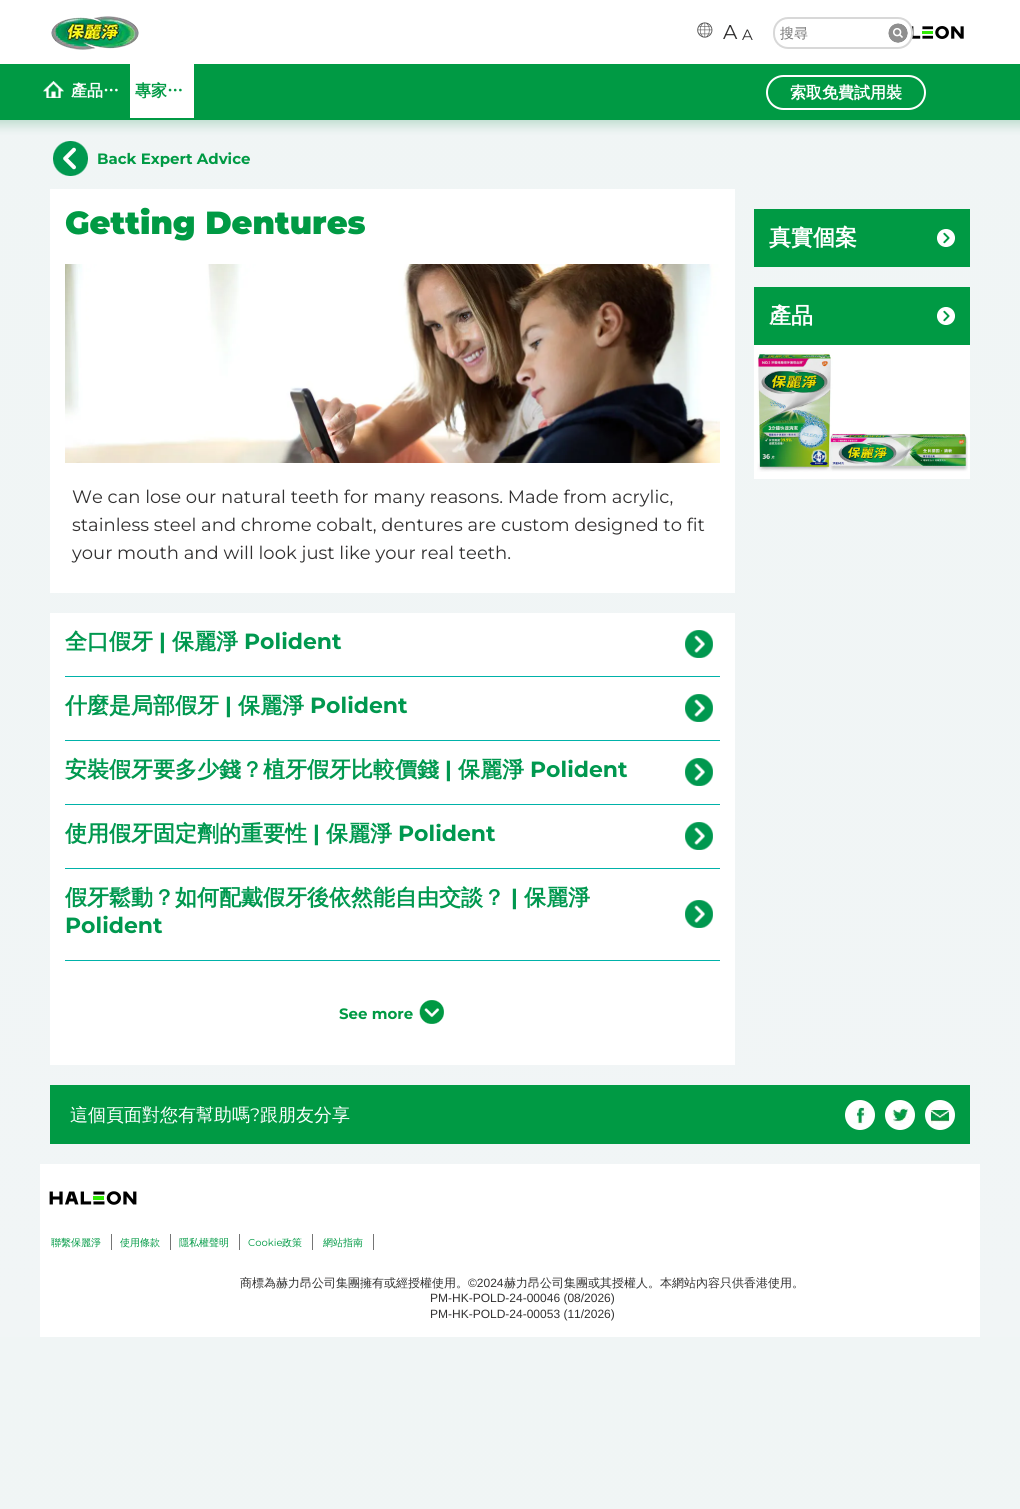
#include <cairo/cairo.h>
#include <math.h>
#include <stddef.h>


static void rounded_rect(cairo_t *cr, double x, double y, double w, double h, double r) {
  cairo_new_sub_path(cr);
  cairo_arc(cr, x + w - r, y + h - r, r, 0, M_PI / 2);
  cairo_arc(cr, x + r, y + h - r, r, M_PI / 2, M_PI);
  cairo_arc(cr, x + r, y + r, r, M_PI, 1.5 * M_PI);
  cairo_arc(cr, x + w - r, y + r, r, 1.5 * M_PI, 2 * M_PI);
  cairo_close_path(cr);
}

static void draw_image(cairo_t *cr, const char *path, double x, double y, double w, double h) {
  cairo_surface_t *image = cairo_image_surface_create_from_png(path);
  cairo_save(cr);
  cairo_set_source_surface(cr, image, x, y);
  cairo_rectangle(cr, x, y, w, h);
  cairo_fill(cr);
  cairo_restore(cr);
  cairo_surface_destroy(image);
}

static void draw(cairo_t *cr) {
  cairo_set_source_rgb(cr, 1, 1, 1);
  cairo_paint(cr);
  draw_image(cr, "images/1.png", 0, 64, 1020, 1445);
  draw_image(cr, "images/2.png", 51, 16, 88, 34);
  draw_image(cr, "images/3.png", 697, 22, 16, 16);
  draw_image(cr, "images/5.png", 911, 26, 53, 13);
  cairo_set_source_rgb(cr, 1, 1, 1);
  rounded_rect(cr, 774, 18, 138, 30, 14);
  cairo_fill_preserve(cr);
  cairo_set_source_rgb(cr, 216 / 255.0, 216 / 255.0, 216 / 255.0);
  cairo_stroke(cr);
  draw_image(cr, "images/4.png", 888, 23, 20, 20);
  draw_image(cr, "images/6.png", 43, 81, 21, 17);
  cairo_set_source_rgb(cr, 1, 1, 1);
  cairo_rectangle(cr, 130, 64, 64, 54);
  cairo_fill(cr);
  rounded_rect(cr, 767, 76, 158, 33, 16.5);
  cairo_stroke(cr);
  draw_image(cr, "images/7.png", 53, 141, 35, 35);
  cairo_rectangle(cr, 50, 189, 685, 404);
  cairo_fill(cr);
  draw_image(cr, "images/8.png", 65, 264, 655, 199);
  cairo_rectangle(cr, 50, 613, 685, 452);
  cairo_fill(cr);
  draw_image(cr, "images/9.png", 685, 630, 28, 28);
  cairo_set_source_rgb(cr, 0, 178 / 255.0, 169 / 255.0);
  cairo_rectangle(cr, 65, 676, 655, 1);
  cairo_fill(cr);
  draw_image(cr, "images/9.png", 685, 694, 28, 28);
  cairo_rectangle(cr, 65, 740, 655, 1);
  cairo_fill(cr);
  draw_image(cr, "images/9.png", 685, 758, 28, 28);
  cairo_rectangle(cr, 65, 804, 655, 1);
  cairo_fill(cr);
  draw_image(cr, "images/9.png", 685, 822, 28, 28);
  cairo_rectangle(cr, 65, 868, 655, 1);
  cairo_fill(cr);
  draw_image(cr, "images/9.png", 685, 900, 28, 28);
  cairo_rectangle(cr, 65, 960, 655, 1);
  cairo_fill(cr);
  draw_image(cr, "images/10.png", 419, 1000, 25, 24);
  cairo_set_source_rgb(cr, 0, 154 / 255.0, 68 / 255.0);
  cairo_rectangle(cr, 754, 209, 216, 58);
  cairo_fill(cr);
  draw_image(cr, "images/11.png", 937, 229, 18, 18);
  cairo_set_source_rgb(cr, 1, 1, 1);
  cairo_rectangle(cr, 754, 345, 216, 134);
  cairo_fill(cr);
  cairo_set_source_rgb(cr, 0, 154 / 255.0, 68 / 255.0);
  cairo_rectangle(cr, 754, 287, 216, 58);
  cairo_fill(cr);
  draw_image(cr, "images/11.png", 937, 307, 18, 18);
  draw_image(cr, "images/12.png", 757, 352, 211, 120);
  cairo_rectangle(cr, 50, 1085, 920, 59);
  cairo_fill(cr);
  draw_image(cr, "images/13.png", 845, 1100, 30, 30);
  draw_image(cr, "images/14.png", 885, 1100, 30, 30);
  draw_image(cr, "images/15.png", 925, 1100, 30, 30);
  cairo_set_source_rgb(cr, 1, 1, 1);
  cairo_rectangle(cr, 40, 1164, 940, 173);
  cairo_fill(cr);
  draw_image(cr, "images/16.png", 49, 1191, 88, 14);
  cairo_set_source_rgb(cr, 117 / 255.0, 117 / 255.0, 117 / 255.0);
  cairo_rectangle(cr, 111, 1234, 1, 16);
  cairo_fill(cr);
  cairo_rectangle(cr, 170, 1234, 1, 16);
  cairo_fill(cr);
  cairo_rectangle(cr, 239, 1234, 1, 16);
  cairo_fill(cr);
  cairo_rectangle(cr, 312, 1234, 1, 16);
  cairo_fill(cr);
  cairo_rectangle(cr, 373, 1234, 1, 16);
  cairo_fill(cr);
  cairo_select_font_face(cr, "Montserrat", CAIRO_FONT_SLANT_NORMAL, CAIRO_FONT_WEIGHT_NORMAL);
  cairo_set_font_size(cr, 20);
  cairo_set_source_rgb(cr, 50 / 255.0, 49 / 255.0, 49 / 255.0);
  cairo_move_to(cr, 723, 39);
  cairo_show_text(cr, "A");
  cairo_set_font_size(cr, 15);
  cairo_move_to(cr, 742, 40);
  cairo_show_text(cr, "A");
  cairo_select_font_face(cr, "WenQuanYi Zen Hei Medium", CAIRO_FONT_SLANT_NORMAL, CAIRO_FONT_WEIGHT_NORMAL);
  cairo_set_font_size(cr, 14);
  cairo_set_source_rgb(cr, 117 / 255.0, 117 / 255.0, 117 / 255.0);
  cairo_move_to(cr, 780, 38);
  cairo_show_text(cr, "搜尋");
  cairo_select_font_face(cr, "WenQuanYi Zen Hei", CAIRO_FONT_SLANT_NORMAL, CAIRO_FONT_WEIGHT_BOLD);
  cairo_set_font_size(cr, 16);
  cairo_set_source_rgb(cr, 1, 1, 1);
  cairo_move_to(cr, 71, 96);
  cairo_show_text(cr, "產品…");
  cairo_set_source_rgb(cr, 0, 154 / 255.0, 68 / 255.0);
  cairo_move_to(cr, 135, 96);
  cairo_show_text(cr, "專家…");
  cairo_set_source_rgb(cr, 1, 1, 1);
  cairo_move_to(cr, 790, 98);
  cairo_show_text(cr, "索取免費試用裝");
  cairo_select_font_face(cr, "Montserrat", CAIRO_FONT_SLANT_NORMAL, CAIRO_FONT_WEIGHT_BOLD);
  cairo_set_font_size(cr, 15);
  cairo_set_source_rgb(cr, 0, 154 / 255.0, 68 / 255.0);
  cairo_move_to(cr, 97, 164);
  cairo_show_text(cr, "Back Expert Advice");
  cairo_select_font_face(cr, "Montserrat Black", CAIRO_FONT_SLANT_NORMAL, CAIRO_FONT_WEIGHT_NORMAL);
  cairo_set_font_size(cr, 32);
  cairo_move_to(cr, 65, 234);
  cairo_show_text(cr, "Getting Dentures");
  cairo_select_font_face(cr, "Montserrat", CAIRO_FONT_SLANT_NORMAL, CAIRO_FONT_WEIGHT_NORMAL);
  cairo_set_font_size(cr, 18);
  cairo_set_source_rgb(cr, 50 / 255.0, 49 / 255.0, 49 / 255.0);
  cairo_move_to(cr, 72, 503);
  cairo_show_text(cr, "We can lose our natural teeth for many reasons. Made from acrylic,");
  cairo_move_to(cr, 72, 531);
  cairo_show_text(cr, "stainless steel and chrome cobalt, dentures are custom designed to fit");
  cairo_move_to(cr, 72, 559);
  cairo_show_text(cr, "your mouth and will look just like your real teeth.");
  cairo_select_font_face(cr, "WenQuanYi Zen Hei", CAIRO_FONT_SLANT_NORMAL, CAIRO_FONT_WEIGHT_BOLD);
  cairo_set_font_size(cr, 22);
  cairo_set_source_rgb(cr, 0, 152 / 255.0, 79 / 255.0);
  cairo_move_to(cr, 65, 649);
  cairo_show_text(cr, "全口假牙");
  cairo_select_font_face(cr, "Montserrat", CAIRO_FONT_SLANT_NORMAL, CAIRO_FONT_WEIGHT_BOLD);
  cairo_move_to(cr, 159, 649);
  cairo_show_text(cr, "|");
  cairo_select_font_face(cr, "WenQuanYi Zen Hei", CAIRO_FONT_SLANT_NORMAL, CAIRO_FONT_WEIGHT_BOLD);
  cairo_move_to(cr, 172, 649);
  cairo_show_text(cr, "保麗淨");
  cairo_select_font_face(cr, "Montserrat", CAIRO_FONT_SLANT_NORMAL, CAIRO_FONT_WEIGHT_BOLD);
  cairo_move_to(cr, 244, 649);
  cairo_show_text(cr, "Polident");
  cairo_select_font_face(cr, "WenQuanYi Zen Hei", CAIRO_FONT_SLANT_NORMAL, CAIRO_FONT_WEIGHT_BOLD);
  cairo_move_to(cr, 65, 713);
  cairo_show_text(cr, "什麼是局部假牙");
  cairo_select_font_face(cr, "Montserrat", CAIRO_FONT_SLANT_NORMAL, CAIRO_FONT_WEIGHT_BOLD);
  cairo_move_to(cr, 225, 713);
  cairo_show_text(cr, "|");
  cairo_select_font_face(cr, "WenQuanYi Zen Hei", CAIRO_FONT_SLANT_NORMAL, CAIRO_FONT_WEIGHT_BOLD);
  cairo_move_to(cr, 238, 713);
  cairo_show_text(cr, "保麗淨");
  cairo_select_font_face(cr, "Montserrat", CAIRO_FONT_SLANT_NORMAL, CAIRO_FONT_WEIGHT_BOLD);
  cairo_move_to(cr, 310, 713);
  cairo_show_text(cr, "Polident");
  cairo_select_font_face(cr, "WenQuanYi Zen Hei", CAIRO_FONT_SLANT_NORMAL, CAIRO_FONT_WEIGHT_BOLD);
  cairo_move_to(cr, 65, 777);
  cairo_show_text(cr, "安裝假牙要多少錢？植牙假牙比較價錢");
  cairo_select_font_face(cr, "Montserrat", CAIRO_FONT_SLANT_NORMAL, CAIRO_FONT_WEIGHT_BOLD);
  cairo_move_to(cr, 445, 777);
  cairo_show_text(cr, "|");
  cairo_select_font_face(cr, "WenQuanYi Zen Hei", CAIRO_FONT_SLANT_NORMAL, CAIRO_FONT_WEIGHT_BOLD);
  cairo_move_to(cr, 458, 777);
  cairo_show_text(cr, "保麗淨");
  cairo_select_font_face(cr, "Montserrat", CAIRO_FONT_SLANT_NORMAL, CAIRO_FONT_WEIGHT_BOLD);
  cairo_move_to(cr, 530, 777);
  cairo_show_text(cr, "Polident");
  cairo_select_font_face(cr, "WenQuanYi Zen Hei", CAIRO_FONT_SLANT_NORMAL, CAIRO_FONT_WEIGHT_BOLD);
  cairo_move_to(cr, 65, 841);
  cairo_show_text(cr, "使用假牙固定劑的重要性");
  cairo_select_font_face(cr, "Montserrat", CAIRO_FONT_SLANT_NORMAL, CAIRO_FONT_WEIGHT_BOLD);
  cairo_move_to(cr, 313, 841);
  cairo_show_text(cr, "|");
  cairo_select_font_face(cr, "WenQuanYi Zen Hei", CAIRO_FONT_SLANT_NORMAL, CAIRO_FONT_WEIGHT_BOLD);
  cairo_move_to(cr, 326, 841);
  cairo_show_text(cr, "保麗淨");
  cairo_select_font_face(cr, "Montserrat", CAIRO_FONT_SLANT_NORMAL, CAIRO_FONT_WEIGHT_BOLD);
  cairo_move_to(cr, 398, 841);
  cairo_show_text(cr, "Polident");
  cairo_select_font_face(cr, "WenQuanYi Zen Hei", CAIRO_FONT_SLANT_NORMAL, CAIRO_FONT_WEIGHT_BOLD);
  cairo_move_to(cr, 65, 905);
  cairo_show_text(cr, "假牙鬆動？如何配戴假牙後依然能自由交談？");
  cairo_select_font_face(cr, "Montserrat", CAIRO_FONT_SLANT_NORMAL, CAIRO_FONT_WEIGHT_BOLD);
  cairo_move_to(cr, 511, 905);
  cairo_show_text(cr, "|");
  cairo_select_font_face(cr, "WenQuanYi Zen Hei", CAIRO_FONT_SLANT_NORMAL, CAIRO_FONT_WEIGHT_BOLD);
  cairo_move_to(cr, 524, 905);
  cairo_show_text(cr, "保麗淨");
  cairo_select_font_face(cr, "Montserrat", CAIRO_FONT_SLANT_NORMAL, CAIRO_FONT_WEIGHT_BOLD);
  cairo_move_to(cr, 65, 933);
  cairo_show_text(cr, "Polident");
  cairo_set_font_size(cr, 15);
  cairo_set_source_rgb(cr, 0, 154 / 255.0, 68 / 255.0);
  cairo_move_to(cr, 339, 1019);
  cairo_show_text(cr, "See more");
  cairo_select_font_face(cr, "WenQuanYi Zen Hei", CAIRO_FONT_SLANT_NORMAL, CAIRO_FONT_WEIGHT_BOLD);
  cairo_set_font_size(cr, 22);
  cairo_set_source_rgb(cr, 1, 1, 1);
  cairo_move_to(cr, 769, 245);
  cairo_show_text(cr, "真實個案");
  cairo_move_to(cr, 769, 323);
  cairo_show_text(cr, "產品");
  cairo_select_font_face(cr, "WenQuanYi Zen Hei Medium", CAIRO_FONT_SLANT_NORMAL, CAIRO_FONT_WEIGHT_NORMAL);
  cairo_set_font_size(cr, 18);
  cairo_move_to(cr, 70, 1121);
  cairo_show_text(cr, "這個頁面對您有幫助嗎");
  cairo_select_font_face(cr, "Montserrat", CAIRO_FONT_SLANT_NORMAL, CAIRO_FONT_WEIGHT_NORMAL);
  cairo_move_to(cr, 250, 1121);
  cairo_show_text(cr, "?");
  cairo_select_font_face(cr, "WenQuanYi Zen Hei Medium", CAIRO_FONT_SLANT_NORMAL, CAIRO_FONT_WEIGHT_NORMAL);
  cairo_move_to(cr, 260, 1121);
  cairo_show_text(cr, "跟朋友分享");
  cairo_set_font_size(cr, 10);
  cairo_set_source_rgb(cr, 0, 154 / 255.0, 68 / 255.0);
  cairo_move_to(cr, 51, 1246);
  cairo_show_text(cr, "聯繫保麗淨");
  cairo_move_to(cr, 120, 1246);
  cairo_show_text(cr, "使用條款");
  cairo_move_to(cr, 179, 1246);
  cairo_show_text(cr, "隱私權聲明");
  cairo_select_font_face(cr, "Montserrat", CAIRO_FONT_SLANT_NORMAL, CAIRO_FONT_WEIGHT_NORMAL);
  cairo_move_to(cr, 248, 1246);
  cairo_show_text(cr, "Cookie");
  cairo_select_font_face(cr, "WenQuanYi Zen Hei Medium", CAIRO_FONT_SLANT_NORMAL, CAIRO_FONT_WEIGHT_NORMAL);
  cairo_move_to(cr, 282, 1246);
  cairo_show_text(cr, "政策");
  cairo_move_to(cr, 323, 1246);
  cairo_show_text(cr, "網站指南");
  cairo_set_font_size(cr, 12);
  cairo_set_source_rgb(cr, 50 / 255.0, 49 / 255.0, 49 / 255.0);
  cairo_move_to(cr, 240, 1287);
  cairo_show_text(cr, "商標為赫力昂公司集團擁有或經授權使用。");
  cairo_select_font_face(cr, "Liberation Sans", CAIRO_FONT_SLANT_NORMAL, CAIRO_FONT_WEIGHT_NORMAL);
  cairo_move_to(cr, 468, 1287);
  cairo_show_text(cr, "©2024");
  cairo_select_font_face(cr, "WenQuanYi Zen Hei Medium", CAIRO_FONT_SLANT_NORMAL, CAIRO_FONT_WEIGHT_NORMAL);
  cairo_move_to(cr, 504, 1287);
  cairo_show_text(cr, "赫力昂公司集團或其授權人。本網站內容只供香港使用。");
  cairo_select_font_face(cr, "Liberation Sans", CAIRO_FONT_SLANT_NORMAL, CAIRO_FONT_WEIGHT_NORMAL);
  cairo_move_to(cr, 430, 1302);
  cairo_show_text(cr, "PM-HK-POLD-24-00046 (08/2026)");
  cairo_move_to(cr, 430, 1318);
  cairo_show_text(cr, "PM-HK-POLD-24-00053 (11/2026)");
}

int main(void) {
  cairo_surface_t *surface = cairo_image_surface_create(CAIRO_FORMAT_RGB24, 1020, 1509);
  cairo_t *cr = cairo_create(surface);
  cairo_font_options_t *options = cairo_font_options_create();
  cairo_font_options_set_hint_metrics(options, CAIRO_HINT_METRICS_OFF);
  cairo_font_options_set_hint_style(options, CAIRO_HINT_STYLE_NONE);
  cairo_set_font_options(cr, options);
  cairo_set_miter_limit(cr, 4);
  draw(cr);
  cairo_surface_write_to_png(surface, "out.png");
  cairo_font_options_destroy(options);
  cairo_destroy(cr);
  cairo_surface_destroy(surface);
  return 0;
}
